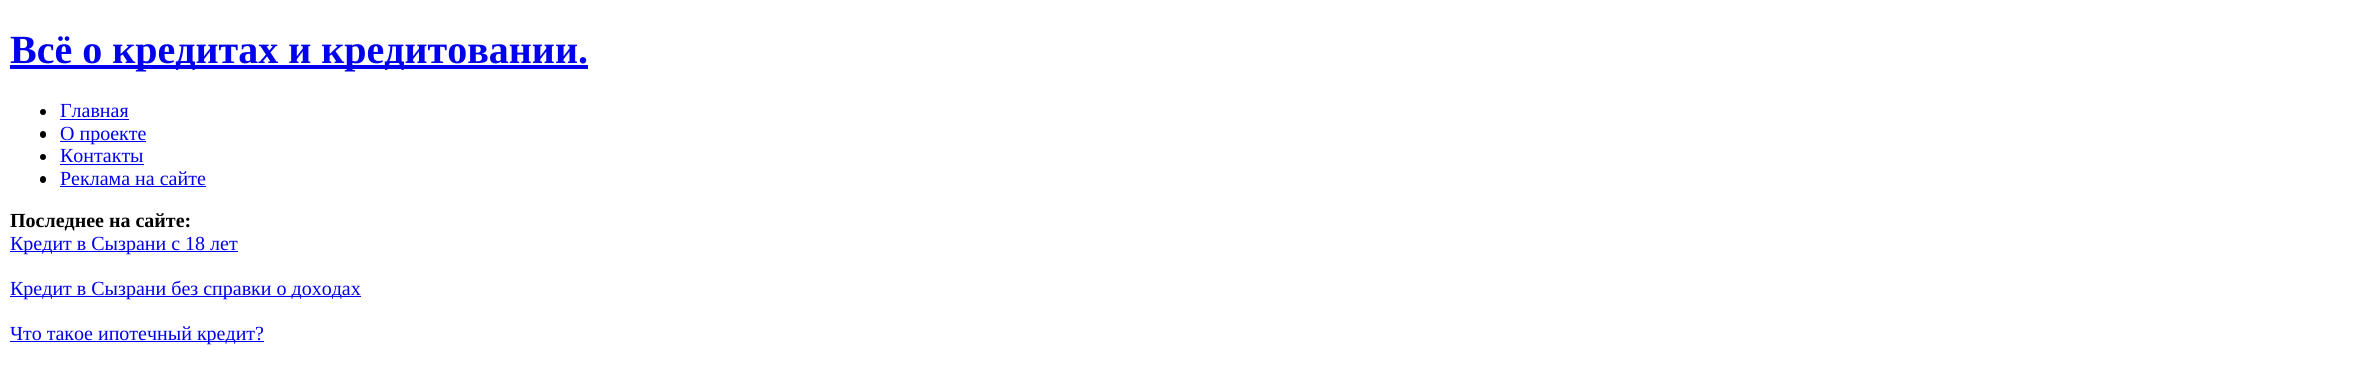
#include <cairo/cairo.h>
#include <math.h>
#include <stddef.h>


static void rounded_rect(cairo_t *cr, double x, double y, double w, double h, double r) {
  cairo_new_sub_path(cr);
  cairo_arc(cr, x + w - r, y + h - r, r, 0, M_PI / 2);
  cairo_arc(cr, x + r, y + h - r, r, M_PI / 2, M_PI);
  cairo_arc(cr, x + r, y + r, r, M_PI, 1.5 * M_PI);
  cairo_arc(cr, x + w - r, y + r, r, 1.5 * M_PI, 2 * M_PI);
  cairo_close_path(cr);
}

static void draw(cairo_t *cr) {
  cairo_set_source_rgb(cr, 1, 1, 1);
  cairo_paint(cr);
  cairo_set_source_rgb(cr, 0, 0, 238 / 255.0);
  cairo_rectangle(cr, 10, 65, 578, 4);
  cairo_fill(cr);
  cairo_set_source_rgb(cr, 0, 0, 0);
  cairo_arc(cr, 43, 112, 3, 0, 2 * M_PI);
  cairo_fill(cr);
  cairo_set_source_rgb(cr, 0, 0, 238 / 255.0);
  cairo_rectangle(cr, 60, 119, 69, 1);
  cairo_fill(cr);
  cairo_set_source_rgb(cr, 0, 0, 0);
  rounded_rect(cr, 40, 131, 6, 7, 3);
  cairo_fill(cr);
  cairo_set_source_rgb(cr, 0, 0, 238 / 255.0);
  cairo_rectangle(cr, 60, 141, 86, 1);
  cairo_fill(cr);
  cairo_set_source_rgb(cr, 0, 0, 0);
  cairo_arc(cr, 43, 157, 3, 0, 2 * M_PI);
  cairo_fill(cr);
  cairo_set_source_rgb(cr, 0, 0, 238 / 255.0);
  cairo_rectangle(cr, 60, 164, 84, 1);
  cairo_fill(cr);
  cairo_set_source_rgb(cr, 0, 0, 0);
  rounded_rect(cr, 40, 176, 6, 7, 3);
  cairo_fill(cr);
  cairo_set_source_rgb(cr, 0, 0, 238 / 255.0);
  cairo_rectangle(cr, 60, 186, 146, 1);
  cairo_fill(cr);
  cairo_rectangle(cr, 10, 251, 228, 1);
  cairo_fill(cr);
  cairo_rectangle(cr, 10, 296, 351, 1);
  cairo_fill(cr);
  cairo_rectangle(cr, 10, 341, 254, 1);
  cairo_fill(cr);
  cairo_select_font_face(cr, "Liberation Serif", CAIRO_FONT_SLANT_NORMAL, CAIRO_FONT_WEIGHT_BOLD);
  cairo_set_font_size(cr, 40);
  cairo_move_to(cr, 10, 63);
  cairo_show_text(cr, "Всё о кредитах и кредитовании.");
  cairo_select_font_face(cr, "Liberation Serif", CAIRO_FONT_SLANT_NORMAL, CAIRO_FONT_WEIGHT_NORMAL);
  cairo_set_font_size(cr, 20);
  cairo_move_to(cr, 60, 117);
  cairo_show_text(cr, "Главная");
  cairo_move_to(cr, 60, 140);
  cairo_show_text(cr, "О проекте");
  cairo_move_to(cr, 60, 162);
  cairo_show_text(cr, "Контакты");
  cairo_move_to(cr, 60, 185);
  cairo_show_text(cr, "Реклама на сайте");
  cairo_select_font_face(cr, "Liberation Serif", CAIRO_FONT_SLANT_NORMAL, CAIRO_FONT_WEIGHT_BOLD);
  cairo_set_source_rgb(cr, 0, 0, 0);
  cairo_move_to(cr, 10, 227);
  cairo_show_text(cr, "Последнее на сайте:");
  cairo_select_font_face(cr, "Liberation Serif", CAIRO_FONT_SLANT_NORMAL, CAIRO_FONT_WEIGHT_NORMAL);
  cairo_set_source_rgb(cr, 0, 0, 238 / 255.0);
  cairo_move_to(cr, 10, 250);
  cairo_show_text(cr, "Кредит в Сызрани с 18 лет");
  cairo_move_to(cr, 10, 295);
  cairo_show_text(cr, "Кредит в Сызрани без справки о доходах");
  cairo_move_to(cr, 10, 340);
  cairo_show_text(cr, "Что такое ипотечный кредит?");
}

int main(void) {
  cairo_surface_t *surface = cairo_image_surface_create(CAIRO_FORMAT_RGB24, 2355, 365);
  cairo_t *cr = cairo_create(surface);
  cairo_font_options_t *options = cairo_font_options_create();
  cairo_font_options_set_hint_metrics(options, CAIRO_HINT_METRICS_OFF);
  cairo_font_options_set_hint_style(options, CAIRO_HINT_STYLE_NONE);
  cairo_set_font_options(cr, options);
  cairo_set_miter_limit(cr, 4);
  draw(cr);
  cairo_surface_write_to_png(surface, "out.png");
  cairo_font_options_destroy(options);
  cairo_destroy(cr);
  cairo_surface_destroy(surface);
  return 0;
}
